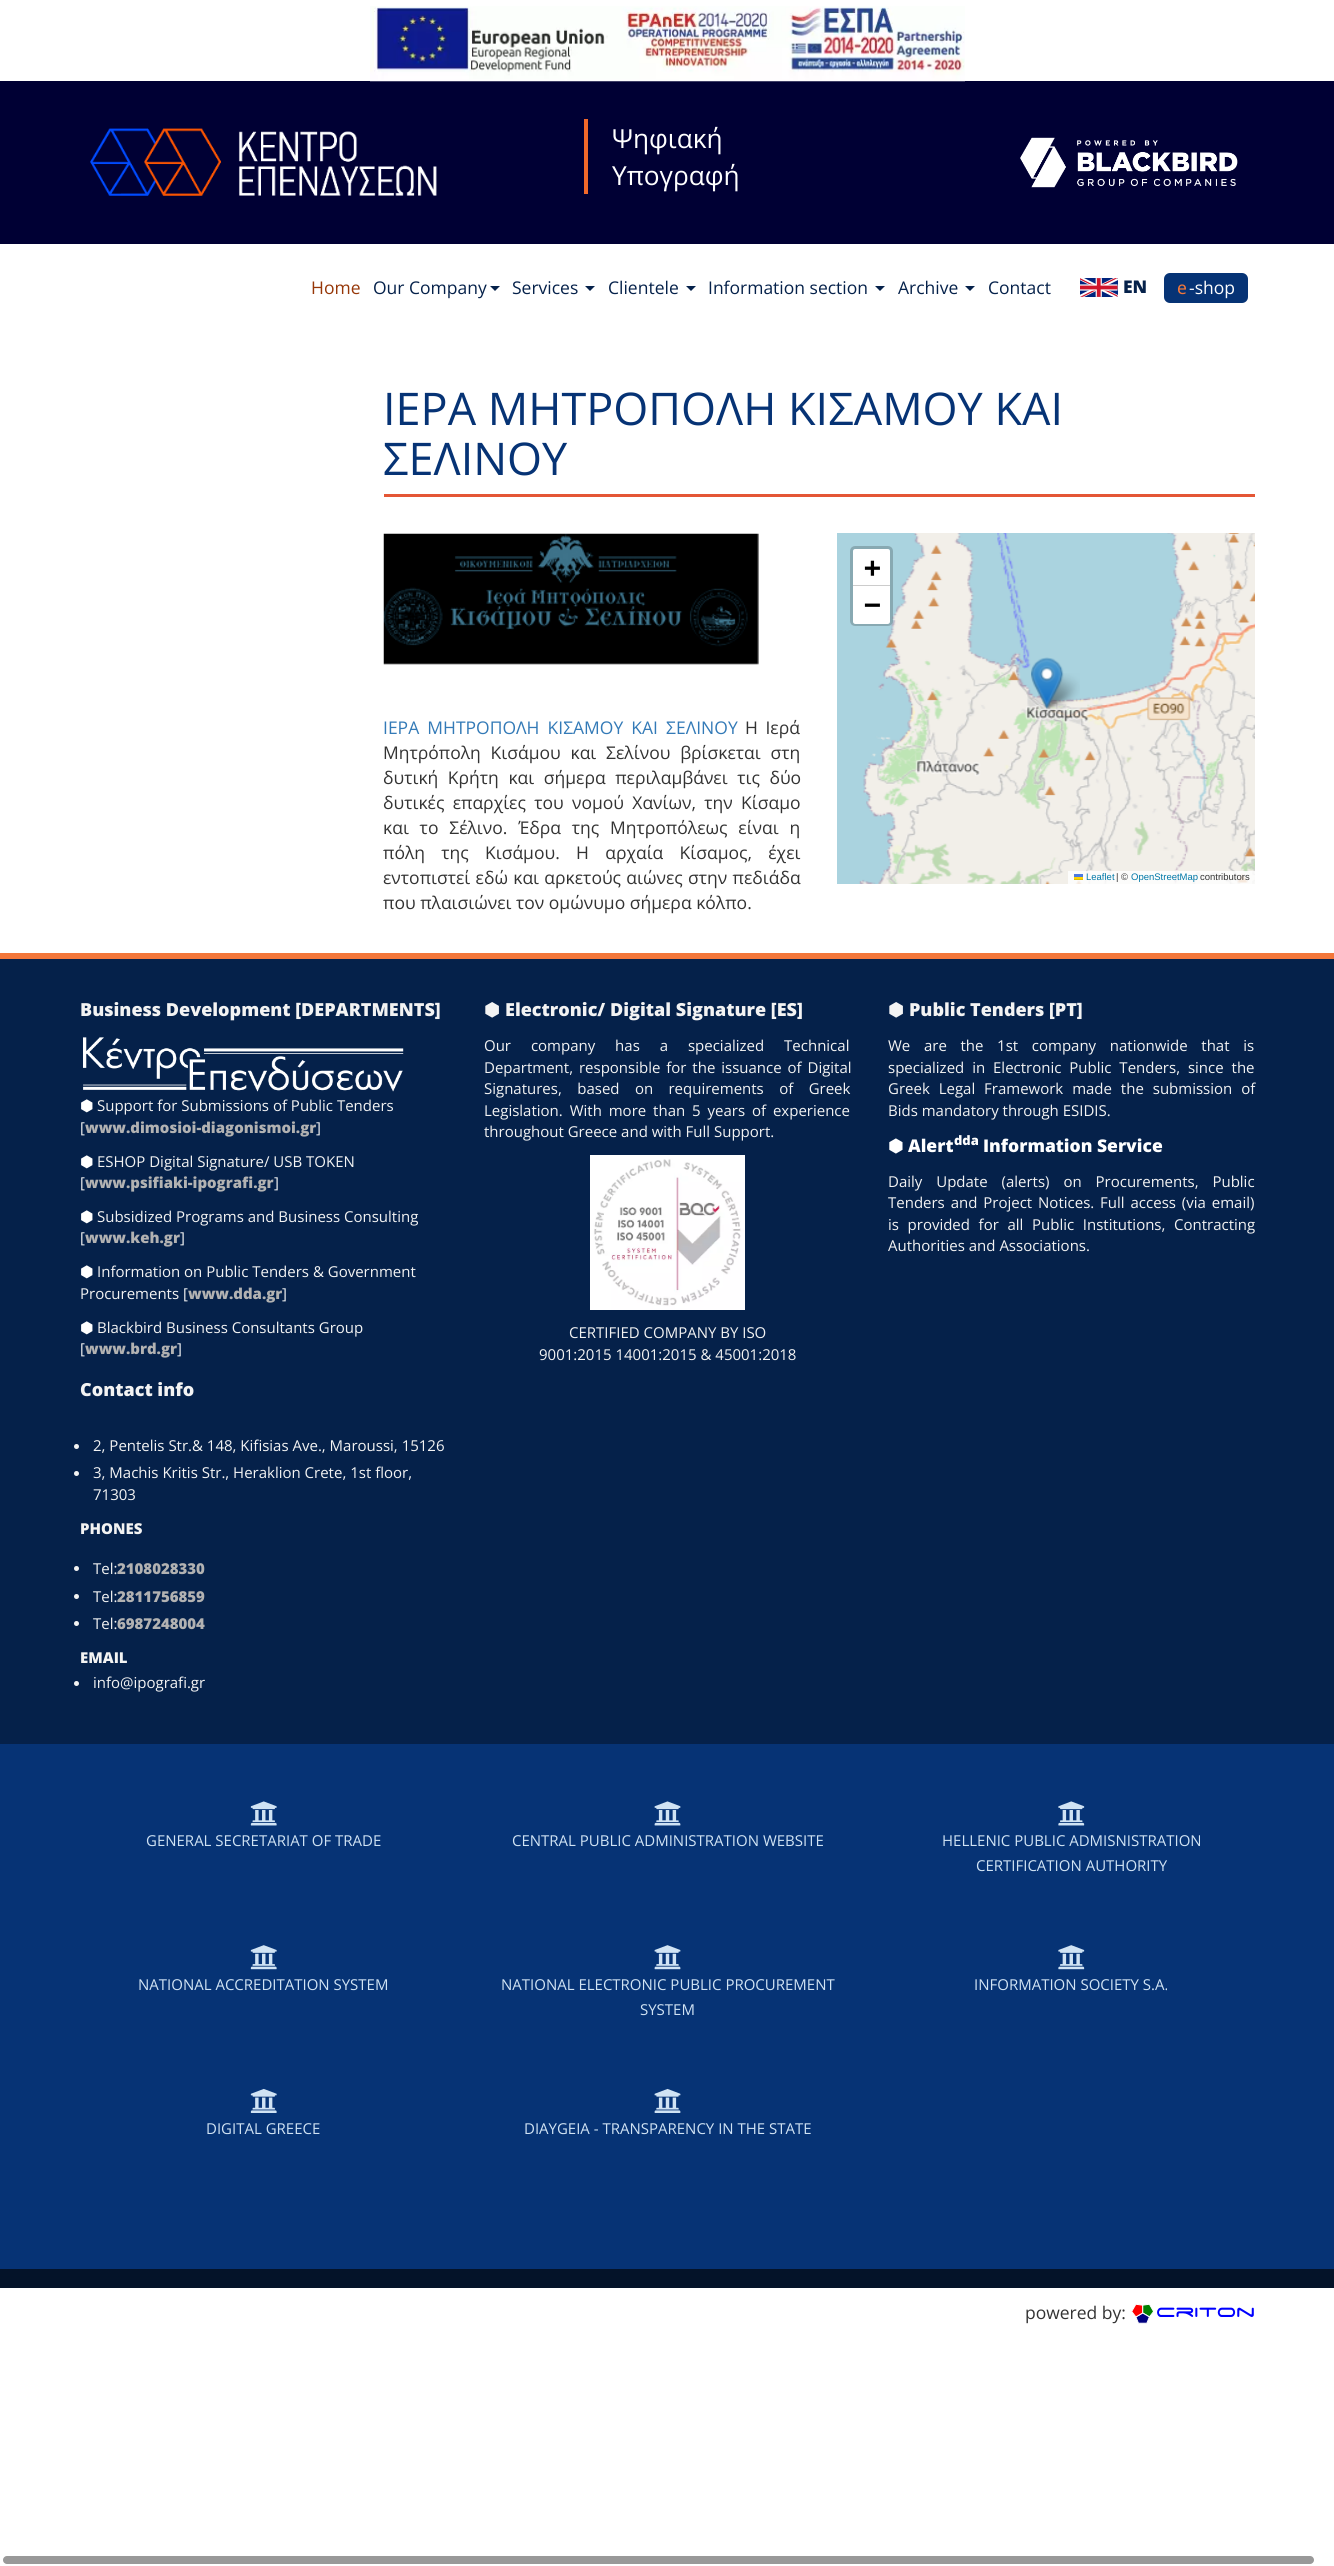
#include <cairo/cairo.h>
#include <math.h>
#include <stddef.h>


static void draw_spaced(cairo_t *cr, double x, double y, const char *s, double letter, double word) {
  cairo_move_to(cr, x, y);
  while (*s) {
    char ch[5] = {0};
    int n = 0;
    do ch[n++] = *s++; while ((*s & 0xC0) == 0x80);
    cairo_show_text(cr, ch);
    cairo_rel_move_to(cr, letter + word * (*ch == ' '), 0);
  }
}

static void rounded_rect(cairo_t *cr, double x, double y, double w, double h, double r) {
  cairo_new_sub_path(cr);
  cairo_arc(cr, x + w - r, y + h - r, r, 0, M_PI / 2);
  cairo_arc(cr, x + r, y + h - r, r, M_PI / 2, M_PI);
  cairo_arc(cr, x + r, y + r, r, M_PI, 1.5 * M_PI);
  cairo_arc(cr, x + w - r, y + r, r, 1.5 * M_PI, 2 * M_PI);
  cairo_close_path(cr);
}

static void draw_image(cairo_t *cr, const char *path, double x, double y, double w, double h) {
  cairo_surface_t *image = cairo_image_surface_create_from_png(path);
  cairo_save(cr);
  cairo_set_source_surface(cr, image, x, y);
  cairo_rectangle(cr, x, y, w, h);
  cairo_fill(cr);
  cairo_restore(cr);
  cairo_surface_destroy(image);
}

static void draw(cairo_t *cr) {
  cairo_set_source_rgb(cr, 1, 1, 1);
  cairo_paint(cr);
  cairo_set_source_rgb(cr, 0, 0, 52 / 255.0);
  cairo_rectangle(cr, 0, 81, 1334, 163);
  cairo_fill(cr);
  draw_image(cr, "images/1.png", 370, 6, 595, 76);
  draw_image(cr, "images/2.png", 90, 128, 347, 68);
  cairo_set_source_rgb(cr, 241 / 255.0, 104 / 255.0, 42 / 255.0);
  cairo_rectangle(cr, 584, 119, 4, 75);
  cairo_fill(cr);
  draw_image(cr, "images/3.png", 1020, 137, 218, 51);
  cairo_set_source_rgb(cr, 5 / 255.0, 33 / 255.0, 74 / 255.0);
  cairo_new_path(cr);
  cairo_move_to(cr, 490, 286);
  cairo_line_to(cr, 500, 286);
  cairo_line_to(cr, 495, 291);
  cairo_close_path(cr);
  cairo_fill(cr);
  cairo_new_path(cr);
  cairo_move_to(cr, 585, 286);
  cairo_line_to(cr, 595, 286);
  cairo_line_to(cr, 590, 291);
  cairo_close_path(cr);
  cairo_fill(cr);
  cairo_new_path(cr);
  cairo_move_to(cr, 686, 286);
  cairo_line_to(cr, 696, 286);
  cairo_line_to(cr, 691, 291);
  cairo_close_path(cr);
  cairo_fill(cr);
  cairo_new_path(cr);
  cairo_move_to(cr, 875, 286);
  cairo_line_to(cr, 885, 286);
  cairo_line_to(cr, 880, 291);
  cairo_close_path(cr);
  cairo_fill(cr);
  cairo_new_path(cr);
  cairo_move_to(cr, 965, 286);
  cairo_line_to(cr, 975, 286);
  cairo_line_to(cr, 970, 291);
  cairo_close_path(cr);
  cairo_fill(cr);
  draw_image(cr, "images/4.png", 1080, 278, 38, 19);
  cairo_set_source_rgb(cr, 6 / 255.0, 51 / 255.0, 117 / 255.0);
  rounded_rect(cr, 1164, 273, 84, 30, 6);
  cairo_fill(cr);
  cairo_set_source_rgb(cr, 228 / 255.0, 86 / 255.0, 53 / 255.0);
  cairo_rectangle(cr, 384, 494, 871, 3);
  cairo_fill(cr);
  draw_image(cr, "images/5.png", 383, 533, 376, 132);
  draw_image(cr, "images/7.png", 866, 533, 320, 252);
  draw_image(cr, "images/6.png", 837, 533, 30, 252);
  draw_image(cr, "images/8.png", 1186, 533, 69, 252);
  draw_image(cr, "images/10.png", 866, 785, 320, 99);
  draw_image(cr, "images/9.png", 837, 785, 30, 99);
  draw_image(cr, "images/11.png", 1186, 785, 69, 99);
  draw_image(cr, "images/13.png", 1042, 673, 38, 36);
  draw_image(cr, "images/12.png", 1031, 657, 33, 53);
  rounded_rect(cr, 851.5, 547.5, 40, 77, 3.5);
  cairo_set_source_rgba(cr, 0, 0, 0, 0.2);
  cairo_set_line_width(cr, 3);
  cairo_stroke(cr);
  cairo_set_source_rgb(cr, 1, 1, 1);
  cairo_new_path(cr);
  cairo_move_to(cr, 855.5, 549);
  cairo_line_to(cr, 887.5, 549);
  cairo_curve_to(cr, 889, 549, 890, 550, 890, 551.5);
  cairo_line_to(cr, 890, 586);
  cairo_line_to(cr, 853, 586);
  cairo_line_to(cr, 853, 551.5);
  cairo_curve_to(cr, 853, 550, 854, 549, 855.5, 549);
  cairo_close_path(cr);
  cairo_fill(cr);
  cairo_set_source_rgb(cr, 204 / 255.0, 204 / 255.0, 204 / 255.0);
  cairo_rectangle(cr, 853, 585, 37, 1);
  cairo_fill(cr);
  cairo_set_source_rgb(cr, 1, 1, 1);
  cairo_new_path(cr);
  cairo_move_to(cr, 853, 586);
  cairo_line_to(cr, 890, 586);
  cairo_line_to(cr, 890, 621.5);
  cairo_curve_to(cr, 890, 623, 889, 624, 887.5, 624);
  cairo_line_to(cr, 855.5, 624);
  cairo_curve_to(cr, 854, 624, 853, 623, 853, 621.5);
  cairo_close_path(cr);
  cairo_fill(cr);
  cairo_set_source_rgba(cr, 1, 1, 1, 0.8);
  cairo_rectangle(cr, 1068, 871, 187, 13);
  cairo_fill(cr);
  cairo_set_source_rgb(cr, 76 / 255.0, 123 / 255.0, 225 / 255.0);
  cairo_rectangle(cr, 1074, 874, 9, 3);
  cairo_fill(cr);
  cairo_set_source_rgb(cr, 1, 213 / 255.0, 0);
  cairo_rectangle(cr, 1074, 877, 9, 2);
  cairo_fill(cr);
  cairo_set_source_rgb(cr, 224 / 255.0, 188 / 255.0, 0);
  cairo_rectangle(cr, 1074, 879, 9, 1);
  cairo_fill(cr);
  cairo_set_source_rgb(cr, 5 / 255.0, 33 / 255.0, 74 / 255.0);
  cairo_rectangle(cr, 0, 959, 1334, 785);
  cairo_fill(cr);
  cairo_set_source_rgb(cr, 243 / 255.0, 119 / 255.0, 58 / 255.0);
  cairo_rectangle(cr, 0, 953, 1334, 6);
  cairo_fill(cr);
  draw_image(cr, "images/14.png", 83, 1037, 321, 55);
  draw_image(cr, "images/15.png", 590, 1155, 155, 155);
  cairo_set_source_rgb(cr, 243 / 255.0, 243 / 255.0, 243 / 255.0);
  cairo_arc(cr, 76.5, 1446.5, 2.5, 0, 2 * M_PI);
  cairo_fill(cr);
  cairo_arc(cr, 76.5, 1473.5, 2.5, 0, 2 * M_PI);
  cairo_fill(cr);
  cairo_arc(cr, 76.5, 1568.5, 2.5, 0, 2 * M_PI);
  cairo_fill(cr);
  cairo_arc(cr, 76.5, 1596.5, 2.5, 0, 2 * M_PI);
  cairo_fill(cr);
  cairo_arc(cr, 76.5, 1623.5, 2.5, 0, 2 * M_PI);
  cairo_fill(cr);
  cairo_arc(cr, 76.5, 1683.5, 2.5, 0, 2 * M_PI);
  cairo_fill(cr);
  cairo_set_source_rgb(cr, 6 / 255.0, 51 / 255.0, 117 / 255.0);
  cairo_rectangle(cr, 0, 1744, 1334, 525);
  cairo_fill(cr);
  cairo_set_source_rgb(cr, 4 / 255.0, 19 / 255.0, 41 / 255.0);
  cairo_rectangle(cr, 0, 2269, 1334, 19);
  cairo_fill(cr);
  draw_image(cr, "images/16.png", 250, 1801, 27, 25);
  draw_image(cr, "images/17.png", 654, 1801, 27, 25);
  draw_image(cr, "images/18.png", 1058, 1801, 27, 25);
  draw_image(cr, "images/19.png", 250, 1945, 27, 25);
  draw_image(cr, "images/20.png", 654, 1945, 27, 25);
  draw_image(cr, "images/21.png", 1058, 1945, 27, 25);
  draw_image(cr, "images/22.png", 250, 2088, 27, 25);
  draw_image(cr, "images/23.png", 654, 2088, 27, 25);
  draw_image(cr, "images/24.png", 1131, 2304, 123, 20);
  cairo_set_source_rgb(cr, 153 / 255.0, 153 / 255.0, 153 / 255.0);
  rounded_rect(cr, 3, 2556, 1311, 8, 4);
  cairo_fill(cr);
  cairo_select_font_face(cr, "Open Sans", CAIRO_FONT_SLANT_NORMAL, CAIRO_FONT_WEIGHT_NORMAL);
  cairo_set_font_size(cr, 26.25);
  cairo_set_source_rgb(cr, 1, 1, 1);
  cairo_move_to(cr, 612, 148);
  cairo_show_text(cr, "Ψηφιακή");
  cairo_move_to(cr, 612, 185);
  cairo_show_text(cr, "Υπογραφή");
  cairo_set_font_size(cr, 17.5);
  cairo_set_source_rgb(cr, 150 / 255.0, 55 / 255.0, 8 / 255.0);
  cairo_move_to(cr, 311, 294);
  cairo_show_text(cr, "Home");
  cairo_set_source_rgb(cr, 5 / 255.0, 33 / 255.0, 74 / 255.0);
  cairo_move_to(cr, 373, 294);
  cairo_show_text(cr, "Our Company");
  cairo_move_to(cr, 512, 294);
  cairo_show_text(cr, "Services");
  cairo_move_to(cr, 608, 294);
  cairo_show_text(cr, "Clientele");
  cairo_move_to(cr, 708, 294);
  cairo_show_text(cr, "Information section");
  cairo_move_to(cr, 898, 294);
  cairo_show_text(cr, "Archive");
  cairo_move_to(cr, 988, 294);
  cairo_show_text(cr, "Contact");
  cairo_select_font_face(cr, "Open Sans ExtraBold", CAIRO_FONT_SLANT_NORMAL, CAIRO_FONT_WEIGHT_NORMAL);
  cairo_move_to(cr, 1123, 293);
  cairo_show_text(cr, "EN");
  cairo_select_font_face(cr, "Noto Sans", CAIRO_FONT_SLANT_NORMAL, CAIRO_FONT_WEIGHT_NORMAL);
  cairo_set_source_rgb(cr, 243 / 255.0, 119 / 255.0, 58 / 255.0);
  cairo_move_to(cr, 1177, 294);
  cairo_show_text(cr, "e");
  cairo_select_font_face(cr, "Open Sans", CAIRO_FONT_SLANT_NORMAL, CAIRO_FONT_WEIGHT_NORMAL);
  cairo_set_source_rgb(cr, 1, 1, 1);
  cairo_move_to(cr, 1189, 294);
  cairo_show_text(cr, "-shop");
  cairo_set_font_size(cr, 45);
  cairo_set_source_rgb(cr, 6 / 255.0, 51 / 255.0, 117 / 255.0);
  cairo_move_to(cr, 383, 425);
  cairo_show_text(cr, "ΙΕΡΑ ΜΗΤΡΟΠΟΛΗ ΚΙΣΑΜΟΥ ΚΑΙ");
  cairo_move_to(cr, 383, 475);
  cairo_show_text(cr, "ΣΕΛΙΝΟΥ");
  cairo_set_font_size(cr, 17.5);
  cairo_set_source_rgb(cr, 51 / 255.0, 122 / 255.0, 183 / 255.0);
  draw_spaced(cr, 383, 734, "ΙΕΡΑ ΜΗΤΡΟΠΟΛΗ ΚΙΣΑΜΟΥ ΚΑΙ ΣΕΛΙΝΟΥ", 0, 3.5);
  cairo_set_source_rgb(cr, 51 / 255.0, 51 / 255.0, 51 / 255.0);
  draw_spaced(cr, 745, 734, "Η Ιερά", 0, 3);
  draw_spaced(cr, 383, 759, "Μητρόπολη Κισάμου και Σελίνου βρίσκεται στη", 0, 5.25);
  draw_spaced(cr, 383, 784, "δυτική Κρήτη και σήμερα περιλαμβάνει τις δύο", 0, 5);
  draw_spaced(cr, 383, 809, "δυτικές επαρχίες του νομού Χανίων, την Κίσαμο", 0, 3.75);
  draw_spaced(cr, 383, 834, "και το Σέλινο. Έδρα της Μητροπόλεως είναι η", 0, 6.25);
  draw_spaced(cr, 383, 859, "πόλη της Κισάμου. Η αρχαία Κίσαμος, έχει", 0, 11.75);
  draw_spaced(cr, 383, 884, "εντοπιστεί εδώ και αρκετούς αιώνες στην πεδιάδα", 0, 0.75);
  cairo_move_to(cr, 383, 909);
  cairo_show_text(cr, "που πλαισιώνει τον ομώνυμο σήμερα κόλπο.");
  cairo_select_font_face(cr, "DejaVu Sans Mono", CAIRO_FONT_SLANT_NORMAL, CAIRO_FONT_WEIGHT_BOLD);
  cairo_set_font_size(cr, 28);
  cairo_set_source_rgb(cr, 0, 0, 0);
  cairo_move_to(cr, 864, 577);
  cairo_show_text(cr, "+");
  cairo_move_to(cr, 864, 614);
  cairo_show_text(cr, "−");
  cairo_select_font_face(cr, "Liberation Sans", CAIRO_FONT_SLANT_NORMAL, CAIRO_FONT_WEIGHT_NORMAL);
  cairo_set_font_size(cr, 9.5);
  cairo_set_source_rgb(cr, 0, 120 / 255.0, 168 / 255.0);
  cairo_move_to(cr, 1086, 880);
  cairo_show_text(cr, "Leaflet");
  cairo_set_source_rgb(cr, 51 / 255.0, 51 / 255.0, 51 / 255.0);
  cairo_move_to(cr, 1116, 880);
  cairo_show_text(cr, "| ©");
  cairo_set_source_rgb(cr, 0, 120 / 255.0, 168 / 255.0);
  cairo_move_to(cr, 1131, 880);
  cairo_show_text(cr, "OpenStreetMap");
  cairo_set_source_rgb(cr, 51 / 255.0, 51 / 255.0, 51 / 255.0);
  cairo_move_to(cr, 1200, 880);
  cairo_show_text(cr, "contributors");
  cairo_select_font_face(cr, "Open Sans ExtraBold", CAIRO_FONT_SLANT_NORMAL, CAIRO_FONT_WEIGHT_NORMAL);
  cairo_set_font_size(cr, 18);
  cairo_set_source_rgb(cr, 243 / 255.0, 243 / 255.0, 243 / 255.0);
  cairo_move_to(cr, 80, 1016);
  cairo_show_text(cr, "Business Development [DEPARTMENTS]");
  cairo_select_font_face(cr, "DejaVu Sans", CAIRO_FONT_SLANT_NORMAL, CAIRO_FONT_WEIGHT_BOLD);
  cairo_set_font_size(cr, 15);
  cairo_set_source_rgb(cr, 1, 1, 1);
  cairo_move_to(cr, 80, 1111);
  cairo_show_text(cr, "⬢");
  cairo_select_font_face(cr, "Open Sans", CAIRO_FONT_SLANT_NORMAL, CAIRO_FONT_WEIGHT_NORMAL);
  cairo_set_source_rgb(cr, 243 / 255.0, 243 / 255.0, 243 / 255.0);
  cairo_move_to(cr, 97, 1111);
  cairo_show_text(cr, "Support for Submissions of Public Tenders");
  cairo_move_to(cr, 80, 1133);
  cairo_show_text(cr, "[");
  cairo_select_font_face(cr, "Open Sans ExtraBold", CAIRO_FONT_SLANT_NORMAL, CAIRO_FONT_WEIGHT_NORMAL);
  cairo_set_source_rgb(cr, 178 / 255.0, 178 / 255.0, 178 / 255.0);
  cairo_move_to(cr, 85, 1133);
  cairo_show_text(cr, "www.dimosioi-diagonismoi.gr");
  cairo_select_font_face(cr, "Open Sans", CAIRO_FONT_SLANT_NORMAL, CAIRO_FONT_WEIGHT_NORMAL);
  cairo_set_source_rgb(cr, 243 / 255.0, 243 / 255.0, 243 / 255.0);
  cairo_move_to(cr, 316, 1133);
  cairo_show_text(cr, "]");
  cairo_select_font_face(cr, "DejaVu Sans", CAIRO_FONT_SLANT_NORMAL, CAIRO_FONT_WEIGHT_BOLD);
  cairo_set_source_rgb(cr, 1, 1, 1);
  cairo_move_to(cr, 80, 1167);
  cairo_show_text(cr, "⬢");
  cairo_select_font_face(cr, "Open Sans", CAIRO_FONT_SLANT_NORMAL, CAIRO_FONT_WEIGHT_NORMAL);
  cairo_set_source_rgb(cr, 243 / 255.0, 243 / 255.0, 243 / 255.0);
  cairo_move_to(cr, 97, 1167);
  cairo_show_text(cr, "ESHOP Digital Signature/ USB TOKEN");
  cairo_move_to(cr, 80, 1188);
  cairo_show_text(cr, "[");
  cairo_select_font_face(cr, "Open Sans ExtraBold", CAIRO_FONT_SLANT_NORMAL, CAIRO_FONT_WEIGHT_NORMAL);
  cairo_set_source_rgb(cr, 178 / 255.0, 178 / 255.0, 178 / 255.0);
  cairo_move_to(cr, 85, 1188);
  cairo_show_text(cr, "www.psifiaki-ipografi.gr");
  cairo_select_font_face(cr, "Open Sans", CAIRO_FONT_SLANT_NORMAL, CAIRO_FONT_WEIGHT_NORMAL);
  cairo_set_source_rgb(cr, 243 / 255.0, 243 / 255.0, 243 / 255.0);
  cairo_move_to(cr, 274, 1188);
  cairo_show_text(cr, "]");
  cairo_select_font_face(cr, "DejaVu Sans", CAIRO_FONT_SLANT_NORMAL, CAIRO_FONT_WEIGHT_BOLD);
  cairo_set_source_rgb(cr, 1, 1, 1);
  cairo_move_to(cr, 80, 1222);
  cairo_show_text(cr, "⬢");
  cairo_select_font_face(cr, "Open Sans", CAIRO_FONT_SLANT_NORMAL, CAIRO_FONT_WEIGHT_NORMAL);
  cairo_set_source_rgb(cr, 243 / 255.0, 243 / 255.0, 243 / 255.0);
  cairo_move_to(cr, 97, 1222);
  cairo_show_text(cr, "Subsidized Programs and Business Consulting");
  cairo_move_to(cr, 80, 1243);
  cairo_show_text(cr, "[");
  cairo_select_font_face(cr, "Open Sans ExtraBold", CAIRO_FONT_SLANT_NORMAL, CAIRO_FONT_WEIGHT_NORMAL);
  cairo_set_source_rgb(cr, 178 / 255.0, 178 / 255.0, 178 / 255.0);
  cairo_move_to(cr, 85, 1243);
  cairo_show_text(cr, "www.keh.gr");
  cairo_select_font_face(cr, "Open Sans", CAIRO_FONT_SLANT_NORMAL, CAIRO_FONT_WEIGHT_NORMAL);
  cairo_set_source_rgb(cr, 243 / 255.0, 243 / 255.0, 243 / 255.0);
  cairo_move_to(cr, 180, 1243);
  cairo_show_text(cr, "]");
  cairo_select_font_face(cr, "DejaVu Sans", CAIRO_FONT_SLANT_NORMAL, CAIRO_FONT_WEIGHT_BOLD);
  cairo_set_source_rgb(cr, 1, 1, 1);
  cairo_move_to(cr, 80, 1277);
  cairo_show_text(cr, "⬢");
  cairo_select_font_face(cr, "Open Sans", CAIRO_FONT_SLANT_NORMAL, CAIRO_FONT_WEIGHT_NORMAL);
  cairo_set_source_rgb(cr, 243 / 255.0, 243 / 255.0, 243 / 255.0);
  cairo_move_to(cr, 97, 1277);
  cairo_show_text(cr, "Information on Public Tenders & Government");
  cairo_move_to(cr, 80, 1299);
  cairo_show_text(cr, "Procurements [");
  cairo_select_font_face(cr, "Open Sans ExtraBold", CAIRO_FONT_SLANT_NORMAL, CAIRO_FONT_WEIGHT_NORMAL);
  cairo_set_source_rgb(cr, 178 / 255.0, 178 / 255.0, 178 / 255.0);
  cairo_move_to(cr, 188, 1299);
  cairo_show_text(cr, "www.dda.gr");
  cairo_select_font_face(cr, "Open Sans", CAIRO_FONT_SLANT_NORMAL, CAIRO_FONT_WEIGHT_NORMAL);
  cairo_set_source_rgb(cr, 243 / 255.0, 243 / 255.0, 243 / 255.0);
  cairo_move_to(cr, 282, 1299);
  cairo_show_text(cr, "]");
  cairo_select_font_face(cr, "DejaVu Sans", CAIRO_FONT_SLANT_NORMAL, CAIRO_FONT_WEIGHT_BOLD);
  cairo_set_source_rgb(cr, 1, 1, 1);
  cairo_move_to(cr, 80, 1333);
  cairo_show_text(cr, "⬢");
  cairo_select_font_face(cr, "Open Sans", CAIRO_FONT_SLANT_NORMAL, CAIRO_FONT_WEIGHT_NORMAL);
  cairo_set_source_rgb(cr, 243 / 255.0, 243 / 255.0, 243 / 255.0);
  cairo_move_to(cr, 97, 1333);
  cairo_show_text(cr, "Blackbird Business Consultants Group");
  cairo_move_to(cr, 80, 1354);
  cairo_show_text(cr, "[");
  cairo_select_font_face(cr, "Open Sans ExtraBold", CAIRO_FONT_SLANT_NORMAL, CAIRO_FONT_WEIGHT_NORMAL);
  cairo_set_source_rgb(cr, 178 / 255.0, 178 / 255.0, 178 / 255.0);
  cairo_move_to(cr, 85, 1354);
  cairo_show_text(cr, "www.brd.gr");
  cairo_select_font_face(cr, "Open Sans", CAIRO_FONT_SLANT_NORMAL, CAIRO_FONT_WEIGHT_NORMAL);
  cairo_set_source_rgb(cr, 243 / 255.0, 243 / 255.0, 243 / 255.0);
  cairo_move_to(cr, 177, 1354);
  cairo_show_text(cr, "]");
  cairo_select_font_face(cr, "DejaVu Sans", CAIRO_FONT_SLANT_NORMAL, CAIRO_FONT_WEIGHT_BOLD);
  cairo_set_font_size(cr, 18);
  cairo_move_to(cr, 484, 1016);
  cairo_show_text(cr, "⬢");
  cairo_select_font_face(cr, "Open Sans ExtraBold", CAIRO_FONT_SLANT_NORMAL, CAIRO_FONT_WEIGHT_NORMAL);
  cairo_move_to(cr, 505, 1016);
  cairo_show_text(cr, "Electronic/ Digital Signature [ES]");
  cairo_select_font_face(cr, "Open Sans", CAIRO_FONT_SLANT_NORMAL, CAIRO_FONT_WEIGHT_NORMAL);
  cairo_set_font_size(cr, 15);
  draw_spaced(cr, 484, 1051, "Our company has a specialized Technical", 0, 16);
  draw_spaced(cr, 484, 1073, "Department, responsible for the issuance of Digital", 0, 2);
  draw_spaced(cr, 484, 1094, "Signatures, based on requirements of Greek", 0, 11.5);
  draw_spaced(cr, 484, 1116, "Legislation. With more than 5 years of experience", 0, 3);
  cairo_move_to(cr, 484, 1137);
  cairo_show_text(cr, "throughout Greece and with Full Support.");
  cairo_move_to(cr, 569, 1338);
  cairo_show_text(cr, "CERTIFIED COMPANY BY ISO");
  cairo_move_to(cr, 539, 1360);
  cairo_show_text(cr, "9001:2015 14001:2015 & 45001:2018");
  cairo_select_font_face(cr, "DejaVu Sans", CAIRO_FONT_SLANT_NORMAL, CAIRO_FONT_WEIGHT_BOLD);
  cairo_set_font_size(cr, 18);
  cairo_move_to(cr, 888, 1016);
  cairo_show_text(cr, "⬢");
  cairo_select_font_face(cr, "Open Sans ExtraBold", CAIRO_FONT_SLANT_NORMAL, CAIRO_FONT_WEIGHT_NORMAL);
  cairo_move_to(cr, 909, 1016);
  cairo_show_text(cr, "Public Tenders [PT]");
  cairo_select_font_face(cr, "Open Sans", CAIRO_FONT_SLANT_NORMAL, CAIRO_FONT_WEIGHT_NORMAL);
  cairo_set_font_size(cr, 15);
  draw_spaced(cr, 888, 1051, "We are the 1st company nationwide that is", 0, 9.75);
  draw_spaced(cr, 888, 1073, "specialized in Electronic Public Tenders, since the", 0, 4);
  draw_spaced(cr, 888, 1094, "Greek Legal Framework made the submission of", 0, 5);
  cairo_move_to(cr, 888, 1116);
  cairo_show_text(cr, "Bids mandatory through ESIDIS.");
  cairo_select_font_face(cr, "DejaVu Sans", CAIRO_FONT_SLANT_NORMAL, CAIRO_FONT_WEIGHT_BOLD);
  cairo_set_font_size(cr, 17.5);
  cairo_set_source_rgb(cr, 1, 1, 1);
  cairo_move_to(cr, 888, 1152);
  cairo_show_text(cr, "⬢");
  cairo_select_font_face(cr, "Open Sans ExtraBold", CAIRO_FONT_SLANT_NORMAL, CAIRO_FONT_WEIGHT_NORMAL);
  cairo_move_to(cr, 908, 1152);
  cairo_show_text(cr, "Alert");
  cairo_set_font_size(cr, 13);
  cairo_move_to(cr, 954, 1145);
  cairo_show_text(cr, "dda");
  cairo_set_font_size(cr, 17.5);
  cairo_move_to(cr, 983, 1152);
  cairo_show_text(cr, "Information Service");
  cairo_select_font_face(cr, "Open Sans", CAIRO_FONT_SLANT_NORMAL, CAIRO_FONT_WEIGHT_NORMAL);
  cairo_set_font_size(cr, 15);
  cairo_set_source_rgb(cr, 243 / 255.0, 243 / 255.0, 243 / 255.0);
  draw_spaced(cr, 888, 1187, "Daily Update (alerts) on Procurements, Public", 0, 10);
  draw_spaced(cr, 888, 1208, "Tenders and Project Notices. Full access (via email)", 0, 2);
  draw_spaced(cr, 888, 1230, "is provided for all Public Institutions, Contracting", 0, 4.75);
  cairo_move_to(cr, 888, 1251);
  cairo_show_text(cr, "Authorities and Associations.");
  cairo_select_font_face(cr, "Open Sans ExtraBold", CAIRO_FONT_SLANT_NORMAL, CAIRO_FONT_WEIGHT_NORMAL);
  cairo_set_font_size(cr, 18);
  cairo_move_to(cr, 80, 1396);
  cairo_show_text(cr, "Contact info");
  cairo_select_font_face(cr, "Open Sans", CAIRO_FONT_SLANT_NORMAL, CAIRO_FONT_WEIGHT_NORMAL);
  cairo_set_font_size(cr, 15);
  cairo_move_to(cr, 93, 1451);
  cairo_show_text(cr, "2, Pentelis Str.& 148, Kifisias Ave., Maroussi, 15126");
  cairo_move_to(cr, 93, 1478);
  cairo_show_text(cr, "3, Machis Kritis Str., Heraklion Crete, 1st floor,");
  cairo_move_to(cr, 93, 1500);
  cairo_show_text(cr, "71303");
  cairo_select_font_face(cr, "Open Sans ExtraBold", CAIRO_FONT_SLANT_NORMAL, CAIRO_FONT_WEIGHT_NORMAL);
  cairo_move_to(cr, 80, 1534);
  cairo_show_text(cr, "PHONES");
  cairo_select_font_face(cr, "Open Sans", CAIRO_FONT_SLANT_NORMAL, CAIRO_FONT_WEIGHT_NORMAL);
  cairo_move_to(cr, 93, 1574);
  cairo_show_text(cr, "Tel:");
  cairo_select_font_face(cr, "Open Sans ExtraBold", CAIRO_FONT_SLANT_NORMAL, CAIRO_FONT_WEIGHT_NORMAL);
  cairo_set_source_rgb(cr, 178 / 255.0, 178 / 255.0, 178 / 255.0);
  cairo_move_to(cr, 117, 1574);
  cairo_show_text(cr, "2108028330");
  cairo_select_font_face(cr, "Open Sans", CAIRO_FONT_SLANT_NORMAL, CAIRO_FONT_WEIGHT_NORMAL);
  cairo_set_source_rgb(cr, 243 / 255.0, 243 / 255.0, 243 / 255.0);
  cairo_move_to(cr, 93, 1602);
  cairo_show_text(cr, "Tel:");
  cairo_select_font_face(cr, "Open Sans ExtraBold", CAIRO_FONT_SLANT_NORMAL, CAIRO_FONT_WEIGHT_NORMAL);
  cairo_set_source_rgb(cr, 178 / 255.0, 178 / 255.0, 178 / 255.0);
  cairo_move_to(cr, 117, 1602);
  cairo_show_text(cr, "2811756859");
  cairo_select_font_face(cr, "Open Sans", CAIRO_FONT_SLANT_NORMAL, CAIRO_FONT_WEIGHT_NORMAL);
  cairo_set_source_rgb(cr, 243 / 255.0, 243 / 255.0, 243 / 255.0);
  cairo_move_to(cr, 93, 1629);
  cairo_show_text(cr, "Tel:");
  cairo_select_font_face(cr, "Open Sans ExtraBold", CAIRO_FONT_SLANT_NORMAL, CAIRO_FONT_WEIGHT_NORMAL);
  cairo_set_source_rgb(cr, 178 / 255.0, 178 / 255.0, 178 / 255.0);
  cairo_move_to(cr, 117, 1629);
  cairo_show_text(cr, "6987248004");
  cairo_set_source_rgb(cr, 243 / 255.0, 243 / 255.0, 243 / 255.0);
  cairo_move_to(cr, 80, 1663);
  cairo_show_text(cr, "EMAIL");
  cairo_select_font_face(cr, "Open Sans", CAIRO_FONT_SLANT_NORMAL, CAIRO_FONT_WEIGHT_NORMAL);
  cairo_move_to(cr, 93, 1688);
  cairo_show_text(cr, "info@ipografi.gr");
  cairo_set_source_rgb(cr, 208 / 255.0, 227 / 255.0, 244 / 255.0);
  cairo_move_to(cr, 146, 1846);
  cairo_show_text(cr, "GENERAL SECRETARIAT OF TRADE");
  cairo_move_to(cr, 512, 1846);
  cairo_show_text(cr, "CENTRAL PUBLIC ADMINISTRATION WEBSITE");
  cairo_move_to(cr, 942, 1846);
  cairo_show_text(cr, "HELLENIC PUBLIC ADMISNISTRATION");
  cairo_move_to(cr, 976, 1871);
  cairo_show_text(cr, "CERTIFICATION AUTHORITY");
  cairo_move_to(cr, 138, 1990);
  cairo_show_text(cr, "NATIONAL ACCREDITATION SYSTEM");
  cairo_move_to(cr, 501, 1990);
  cairo_show_text(cr, "NATIONAL ELECTRONIC PUBLIC PROCUREMENT");
  cairo_move_to(cr, 640, 2015);
  cairo_show_text(cr, "SYSTEM");
  cairo_move_to(cr, 974, 1990);
  cairo_show_text(cr, "INFORMATION SOCIETY S.A.");
  cairo_move_to(cr, 206, 2134);
  cairo_show_text(cr, "DIGITAL GREECE");
  cairo_move_to(cr, 524, 2134);
  cairo_show_text(cr, "DIAYGEIA - TRANSPARENCY IN THE STATE");
  cairo_set_font_size(cr, 17.5);
  cairo_set_source_rgb(cr, 51 / 255.0, 51 / 255.0, 51 / 255.0);
  cairo_move_to(cr, 1025, 2319);
  cairo_show_text(cr, "powered by:");
}

int main(void) {
  cairo_surface_t *surface = cairo_image_surface_create(CAIRO_FORMAT_RGB24, 1334, 2566);
  cairo_t *cr = cairo_create(surface);
  cairo_font_options_t *options = cairo_font_options_create();
  cairo_font_options_set_hint_metrics(options, CAIRO_HINT_METRICS_OFF);
  cairo_font_options_set_hint_style(options, CAIRO_HINT_STYLE_NONE);
  cairo_set_font_options(cr, options);
  cairo_set_miter_limit(cr, 4);
  draw(cr);
  cairo_surface_write_to_png(surface, "out.png");
  cairo_font_options_destroy(options);
  cairo_destroy(cr);
  cairo_surface_destroy(surface);
  return 0;
}
